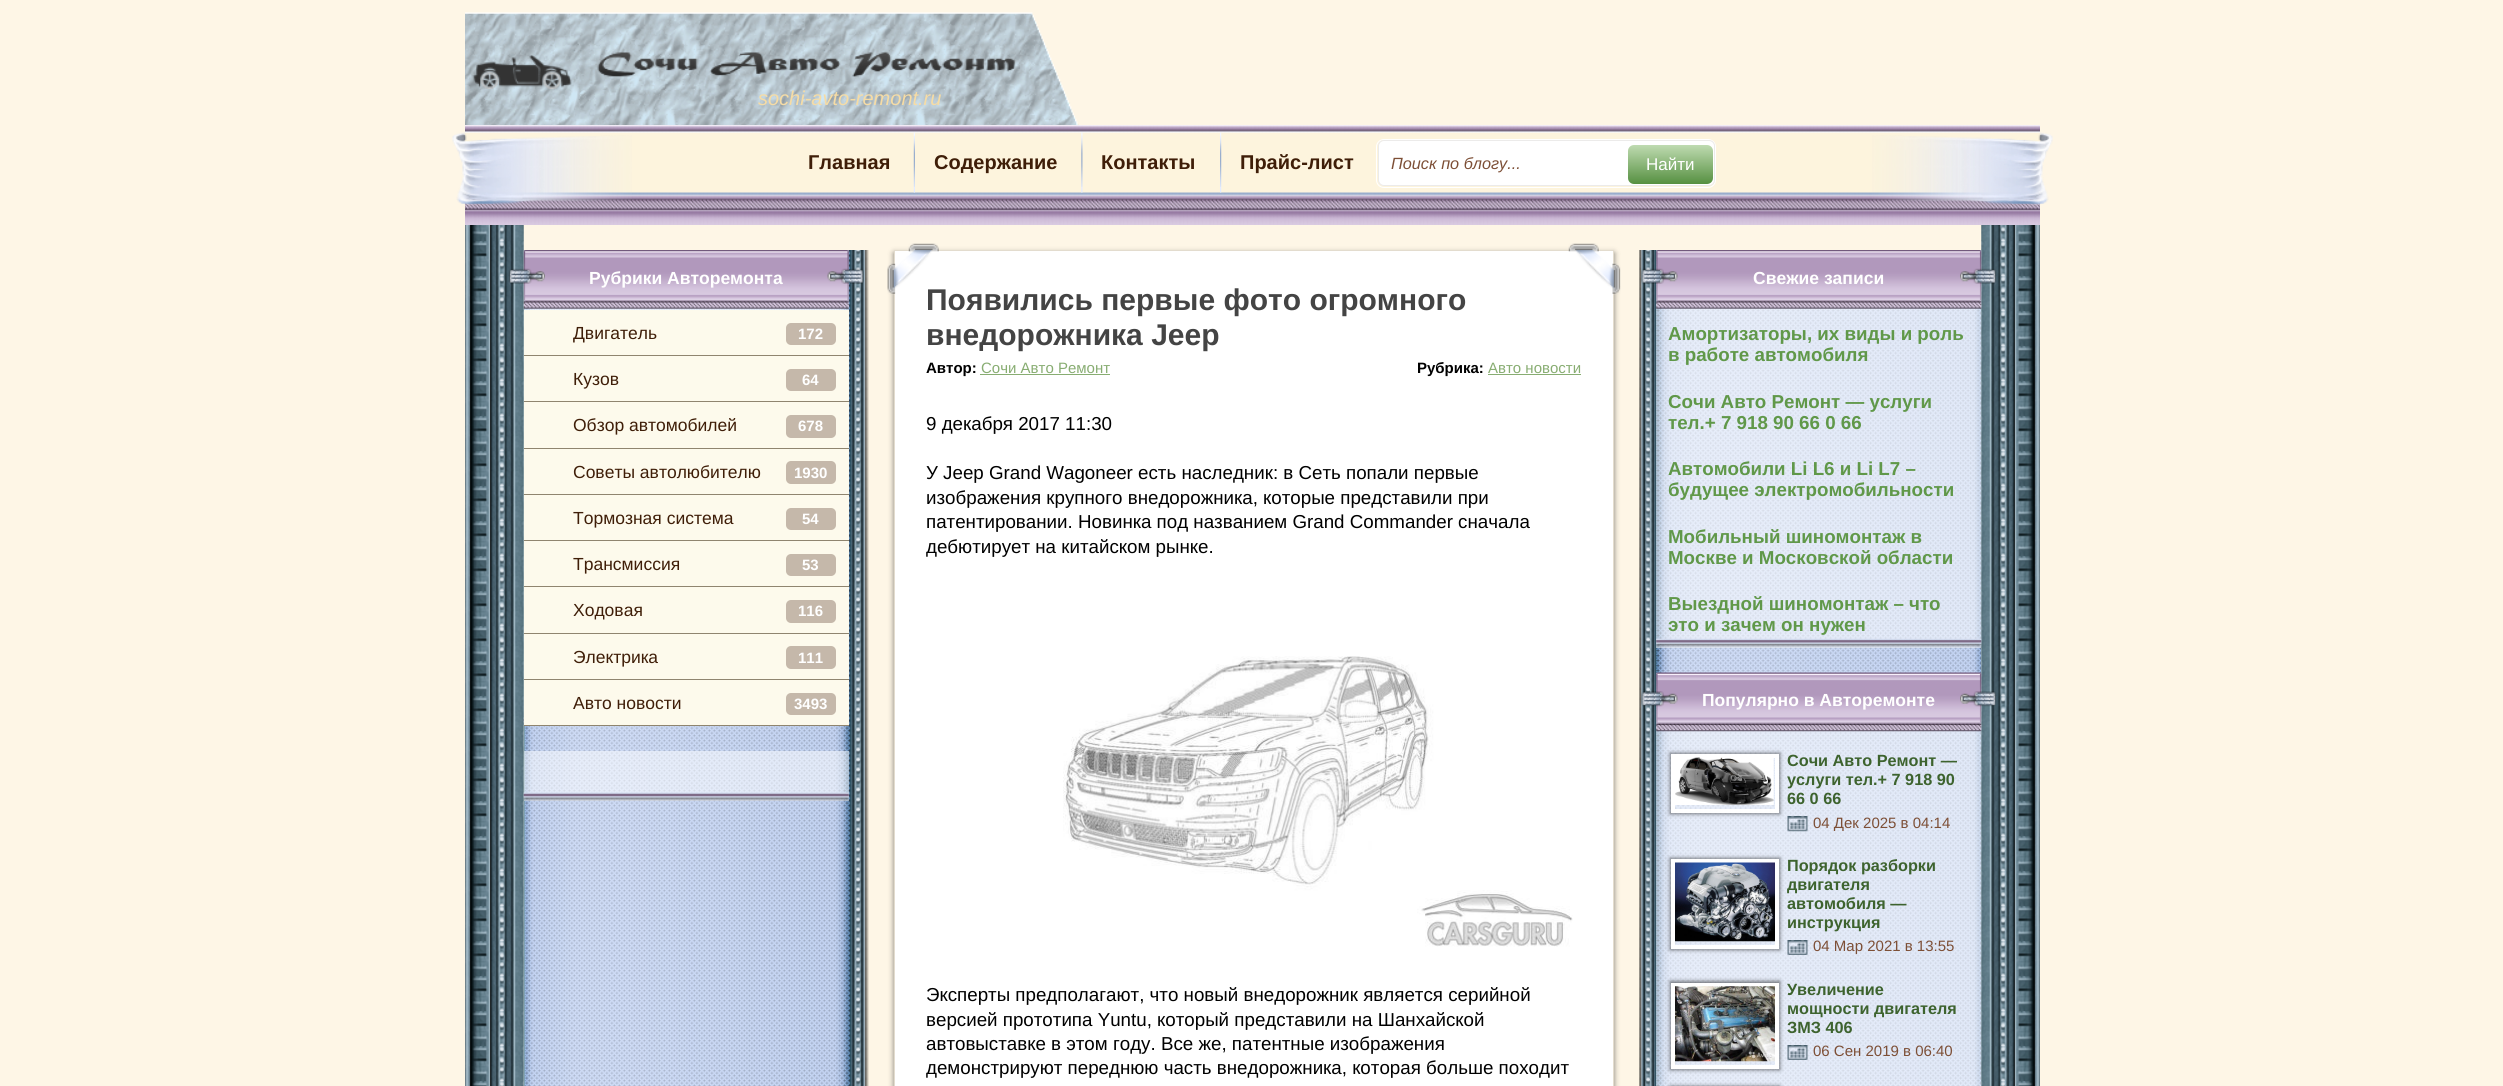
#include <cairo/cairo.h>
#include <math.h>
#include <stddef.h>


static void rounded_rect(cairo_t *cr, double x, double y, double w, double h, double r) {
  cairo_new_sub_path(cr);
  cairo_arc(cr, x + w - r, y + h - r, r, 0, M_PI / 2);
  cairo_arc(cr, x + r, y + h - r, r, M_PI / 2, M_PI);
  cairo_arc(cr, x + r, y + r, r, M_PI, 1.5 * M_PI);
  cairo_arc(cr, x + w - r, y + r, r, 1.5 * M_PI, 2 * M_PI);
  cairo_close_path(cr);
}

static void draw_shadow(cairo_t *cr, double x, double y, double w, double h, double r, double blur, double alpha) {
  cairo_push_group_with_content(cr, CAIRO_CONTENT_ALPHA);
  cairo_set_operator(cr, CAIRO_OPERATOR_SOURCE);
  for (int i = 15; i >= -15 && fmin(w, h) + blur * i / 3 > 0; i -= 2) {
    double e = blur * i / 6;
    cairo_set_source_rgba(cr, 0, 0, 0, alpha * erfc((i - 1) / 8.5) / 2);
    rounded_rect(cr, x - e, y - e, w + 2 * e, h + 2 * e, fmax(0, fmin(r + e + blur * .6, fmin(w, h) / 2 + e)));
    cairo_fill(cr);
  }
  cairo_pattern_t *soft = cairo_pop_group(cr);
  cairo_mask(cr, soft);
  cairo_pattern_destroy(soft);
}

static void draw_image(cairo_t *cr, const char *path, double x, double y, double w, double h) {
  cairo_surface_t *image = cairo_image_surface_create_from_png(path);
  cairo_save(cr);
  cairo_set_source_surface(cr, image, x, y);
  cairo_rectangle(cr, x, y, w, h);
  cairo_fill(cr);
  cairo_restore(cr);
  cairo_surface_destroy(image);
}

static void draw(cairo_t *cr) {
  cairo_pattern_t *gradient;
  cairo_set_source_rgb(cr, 254 / 255.0, 246 / 255.0, 230 / 255.0);
  cairo_paint(cr);
  draw_image(cr, "images/1.png", 465, 12, 614, 113);
  draw_image(cr, "images/2.png", 472, 55, 100, 34);
  draw_image(cr, "images/3.png", 597, 51, 419, 26);
  cairo_set_source_rgb(cr, 253 / 255.0, 244 / 255.0, 221 / 255.0);
  cairo_rectangle(cr, 465, 133, 1575, 60);
  cairo_fill(cr);
  draw_image(cr, "images/4.png", 465, 125, 1575, 100);
  draw_image(cr, "images/5.png", 452, 132, 180, 73);
  draw_image(cr, "images/6.png", 913, 132, 2, 61);
  draw_image(cr, "images/7.png", 1081, 132, 2, 61);
  draw_image(cr, "images/8.png", 1220, 132, 2, 61);
  rounded_rect(cr, 1376.5, 139.5, 339, 48, 7.5);
  cairo_set_source_rgb(cr, 1, 1, 1);
  cairo_set_line_width(cr, 1);
  cairo_stroke(cr);
  rounded_rect(cr, 1378.5, 140.5, 336, 45, 5.5);
  cairo_fill_preserve(cr);
  cairo_set_source_rgb(cr, 236 / 255.0, 235 / 255.0, 234 / 255.0);
  cairo_stroke(cr);
  gradient = cairo_pattern_create_linear(1670, 184, 1670, 145);
  cairo_pattern_add_color_stop_rgba(gradient, 0, 86 / 255.0, 144 / 255.0, 65 / 255.0, 1);
  cairo_pattern_add_color_stop_rgba(gradient, 1, 191 / 255.0, 219 / 255.0, 177 / 255.0, 1);
  cairo_set_source(cr, gradient);
  cairo_pattern_destroy(gradient);
  rounded_rect(cr, 1628, 145, 85, 39, 6);
  cairo_fill(cr);
  draw_image(cr, "images/9.png", 1872, 132, 181, 73);
  draw_image(cr, "images/10.png", 465, 225, 1575, 861);
  draw_image(cr, "images/11.png", 523, 250, 1459, 836);
  cairo_set_source_rgba(cr, 1, 1, 1, 0.5);
  cairo_rectangle(cr, 524, 250, 325, 60);
  cairo_fill(cr);
  draw_image(cr, "images/12.png", 523, 717, 1, 8);
  draw_image(cr, "images/13.png", 523, 250, 326, 59);
  draw_image(cr, "images/14.png", 508, 268, 37, 16);
  draw_image(cr, "images/15.png", 827, 268, 37, 16);
  cairo_set_source_rgb(cr, 253 / 255.0, 250 / 255.0, 236 / 255.0);
  cairo_rectangle(cr, 524, 310, 325, 45);
  cairo_fill(cr);
  cairo_set_source_rgb(cr, 143 / 255.0, 133 / 255.0, 111 / 255.0);
  cairo_rectangle(cr, 524, 355, 325, 1);
  cairo_fill(cr);
  cairo_set_source_rgb(cr, 197 / 255.0, 184 / 255.0, 170 / 255.0);
  rounded_rect(cr, 786, 323, 50, 22, 5);
  cairo_fill(cr);
  cairo_set_source_rgb(cr, 253 / 255.0, 250 / 255.0, 236 / 255.0);
  cairo_rectangle(cr, 524, 356, 325, 92);
  cairo_fill(cr);
  cairo_set_source_rgb(cr, 143 / 255.0, 133 / 255.0, 111 / 255.0);
  cairo_rectangle(cr, 524, 401, 325, 1);
  cairo_fill(cr);
  cairo_set_source_rgb(cr, 197 / 255.0, 184 / 255.0, 170 / 255.0);
  rounded_rect(cr, 786, 369, 50, 22, 5);
  cairo_fill(cr);
  cairo_set_source_rgb(cr, 143 / 255.0, 133 / 255.0, 111 / 255.0);
  cairo_rectangle(cr, 524, 448, 325, 1);
  cairo_fill(cr);
  cairo_set_source_rgb(cr, 197 / 255.0, 184 / 255.0, 170 / 255.0);
  rounded_rect(cr, 786, 415, 50, 23, 5);
  cairo_fill(cr);
  cairo_set_source_rgb(cr, 253 / 255.0, 250 / 255.0, 236 / 255.0);
  cairo_rectangle(cr, 524, 449, 325, 45);
  cairo_fill(cr);
  cairo_set_source_rgb(cr, 143 / 255.0, 133 / 255.0, 111 / 255.0);
  cairo_rectangle(cr, 524, 494, 325, 1);
  cairo_fill(cr);
  cairo_set_source_rgb(cr, 197 / 255.0, 184 / 255.0, 170 / 255.0);
  rounded_rect(cr, 786, 461, 50, 23, 5);
  cairo_fill(cr);
  cairo_set_source_rgb(cr, 253 / 255.0, 250 / 255.0, 236 / 255.0);
  cairo_rectangle(cr, 524, 495, 325, 45);
  cairo_fill(cr);
  cairo_set_source_rgb(cr, 143 / 255.0, 133 / 255.0, 111 / 255.0);
  cairo_rectangle(cr, 524, 540, 325, 1);
  cairo_fill(cr);
  cairo_set_source_rgb(cr, 197 / 255.0, 184 / 255.0, 170 / 255.0);
  rounded_rect(cr, 786, 508, 50, 22, 5);
  cairo_fill(cr);
  cairo_set_source_rgb(cr, 253 / 255.0, 250 / 255.0, 236 / 255.0);
  cairo_rectangle(cr, 524, 541, 325, 92);
  cairo_fill(cr);
  cairo_set_source_rgb(cr, 143 / 255.0, 133 / 255.0, 111 / 255.0);
  cairo_rectangle(cr, 524, 586, 325, 1);
  cairo_fill(cr);
  cairo_set_source_rgb(cr, 197 / 255.0, 184 / 255.0, 170 / 255.0);
  rounded_rect(cr, 786, 554, 50, 22, 5);
  cairo_fill(cr);
  cairo_set_source_rgb(cr, 143 / 255.0, 133 / 255.0, 111 / 255.0);
  cairo_rectangle(cr, 524, 633, 325, 1);
  cairo_fill(cr);
  cairo_set_source_rgb(cr, 197 / 255.0, 184 / 255.0, 170 / 255.0);
  rounded_rect(cr, 786, 600, 50, 23, 5);
  cairo_fill(cr);
  cairo_set_source_rgb(cr, 253 / 255.0, 250 / 255.0, 236 / 255.0);
  cairo_rectangle(cr, 524, 634, 325, 45);
  cairo_fill(cr);
  cairo_set_source_rgb(cr, 143 / 255.0, 133 / 255.0, 111 / 255.0);
  cairo_rectangle(cr, 524, 679, 325, 1);
  cairo_fill(cr);
  cairo_set_source_rgb(cr, 197 / 255.0, 184 / 255.0, 170 / 255.0);
  rounded_rect(cr, 786, 646, 50, 23, 5);
  cairo_fill(cr);
  cairo_set_source_rgb(cr, 253 / 255.0, 250 / 255.0, 236 / 255.0);
  cairo_rectangle(cr, 524, 680, 325, 45);
  cairo_fill(cr);
  cairo_set_source_rgb(cr, 143 / 255.0, 133 / 255.0, 111 / 255.0);
  cairo_rectangle(cr, 524, 725, 325, 1);
  cairo_fill(cr);
  cairo_set_source_rgb(cr, 197 / 255.0, 184 / 255.0, 170 / 255.0);
  rounded_rect(cr, 786, 693, 50, 22, 5);
  cairo_fill(cr);
  cairo_set_source_rgba(cr, 1, 1, 1, 0.5);
  cairo_rectangle(cr, 524, 751, 325, 50);
  cairo_fill(cr);
  draw_image(cr, "images/16.png", 523, 792, 326, 9);
  cairo_set_source_rgb(cr, 254 / 255.0, 246 / 255.0, 230 / 255.0);
  cairo_rectangle(cr, 869, 250, 770, 836);
  cairo_fill(cr);
  cairo_set_source_rgb(cr, 0, 0, 0);
  draw_shadow(cr, 894, 253, 720, 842, 0, 3, 0.5);
  cairo_set_source_rgb(cr, 1, 1, 1);
  cairo_rectangle(cr, 895, 251, 718, 835);
  cairo_fill(cr);
  cairo_set_source_rgb(cr, 227 / 255.0, 220 / 255.0, 206 / 255.0);
  cairo_rectangle(cr, 894, 250, 720, 1);
  cairo_fill(cr);
  cairo_rectangle(cr, 1613, 250, 1, 836);
  cairo_fill(cr);
  cairo_rectangle(cr, 894, 250, 1, 836);
  cairo_fill(cr);
  draw_image(cr, "images/18.png", 1568, 243, 53, 52);
  cairo_set_source_rgb(cr, 136 / 255.0, 173 / 255.0, 114 / 255.0);
  cairo_rectangle(cr, 980, 374, 130, 1);
  cairo_fill(cr);
  cairo_rectangle(cr, 1488, 374, 93, 1);
  cairo_fill(cr);
  draw_image(cr, "images/19.png", 1063, 656, 510, 291);
  cairo_set_source_rgba(cr, 1, 1, 1, 0.5);
  cairo_rectangle(cr, 1656, 250, 325, 398);
  cairo_fill(cr);
  draw_image(cr, "images/20.png", 1656, 638, 326, 10);
  draw_image(cr, "images/21.png", 1656, 250, 326, 59);
  draw_image(cr, "images/22.png", 1641, 268, 37, 16);
  draw_image(cr, "images/23.png", 1960, 268, 37, 16);
  cairo_rectangle(cr, 1656, 673, 325, 413);
  cairo_fill(cr);
  draw_image(cr, "images/24.png", 1656, 672, 326, 60);
  draw_image(cr, "images/25.png", 1641, 691, 37, 16);
  draw_image(cr, "images/26.png", 1960, 691, 37, 16);
  cairo_save(cr);
  cairo_set_fill_rule(cr, CAIRO_FILL_RULE_EVEN_ODD);
  cairo_new_path(cr);
  cairo_move_to(cr, 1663, 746);
  cairo_line_to(cr, 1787, 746);
  cairo_line_to(cr, 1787, 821);
  cairo_line_to(cr, 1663, 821);
  cairo_close_path(cr);
  cairo_move_to(cr, 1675, 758);
  cairo_line_to(cr, 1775, 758);
  cairo_line_to(cr, 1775, 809);
  cairo_line_to(cr, 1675, 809);
  cairo_close_path(cr);
  cairo_clip(cr);
  cairo_set_source_rgb(cr, 0, 0, 0);
  draw_shadow(cr, 1670, 753, 110, 61, 0, 2, 0.5);
  cairo_restore(cr);
  cairo_rectangle(cr, 1673, 756, 104, 55);
  cairo_set_source_rgb(cr, 1, 1, 1);
  cairo_set_line_width(cr, 4);
  cairo_stroke(cr);
  draw_image(cr, "images/27.png", 1675, 757, 99, 48);
  draw_image(cr, "images/28.png", 1787, 816, 21, 16);
  cairo_save(cr);
  cairo_set_fill_rule(cr, CAIRO_FILL_RULE_EVEN_ODD);
  cairo_new_path(cr);
  cairo_move_to(cr, 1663, 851);
  cairo_line_to(cr, 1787, 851);
  cairo_line_to(cr, 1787, 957);
  cairo_line_to(cr, 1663, 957);
  cairo_close_path(cr);
  cairo_move_to(cr, 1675, 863);
  cairo_line_to(cr, 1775, 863);
  cairo_line_to(cr, 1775, 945);
  cairo_line_to(cr, 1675, 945);
  cairo_close_path(cr);
  cairo_clip(cr);
  cairo_set_source_rgb(cr, 0, 0, 0);
  draw_shadow(cr, 1670, 858, 110, 92, 0, 2, 0.5);
  cairo_restore(cr);
  cairo_rectangle(cr, 1673, 861, 104, 86);
  cairo_stroke(cr);
  draw_image(cr, "images/29.png", 1675, 862, 100, 80);
  draw_image(cr, "images/30.png", 1787, 940, 21, 15);
  cairo_save(cr);
  cairo_set_fill_rule(cr, CAIRO_FILL_RULE_EVEN_ODD);
  cairo_new_path(cr);
  cairo_move_to(cr, 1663, 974);
  cairo_line_to(cr, 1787, 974);
  cairo_line_to(cr, 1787, 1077);
  cairo_line_to(cr, 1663, 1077);
  cairo_close_path(cr);
  cairo_move_to(cr, 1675, 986);
  cairo_line_to(cr, 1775, 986);
  cairo_line_to(cr, 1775, 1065);
  cairo_line_to(cr, 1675, 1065);
  cairo_close_path(cr);
  cairo_clip(cr);
  cairo_set_source_rgb(cr, 0, 0, 0);
  draw_shadow(cr, 1670, 981, 110, 89, 0, 2, 0.5);
  cairo_restore(cr);
  cairo_rectangle(cr, 1673, 985, 104, 82);
  cairo_stroke(cr);
  draw_image(cr, "images/31.png", 1675, 986, 100, 76);
  draw_image(cr, "images/32.png", 1787, 1045, 21, 15);
  cairo_set_source_rgb(cr, 0, 0, 0);
  draw_shadow(cr, 1670, 1086, 110, 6, 0, 2, 0.5);
  cairo_select_font_face(cr, "Liberation Sans", CAIRO_FONT_SLANT_ITALIC, CAIRO_FONT_WEIGHT_NORMAL);
  cairo_set_font_size(cr, 20);
  cairo_set_source_rgb(cr, 246 / 255.0, 220 / 255.0, 165 / 255.0);
  cairo_move_to(cr, 758, 105);
  cairo_show_text(cr, "sochi-avto-remont.ru");
  cairo_select_font_face(cr, "Liberation Sans", CAIRO_FONT_SLANT_NORMAL, CAIRO_FONT_WEIGHT_BOLD);
  cairo_set_source_rgb(cr, 63 / 255.0, 30 / 255.0, 8 / 255.0);
  cairo_move_to(cr, 808, 169);
  cairo_show_text(cr, "Главная");
  cairo_move_to(cr, 934, 169);
  cairo_show_text(cr, "Содержание");
  cairo_move_to(cr, 1101, 169);
  cairo_show_text(cr, "Контакты");
  cairo_move_to(cr, 1240, 169);
  cairo_show_text(cr, "Прайс-лист");
  cairo_select_font_face(cr, "Liberation Sans", CAIRO_FONT_SLANT_ITALIC, CAIRO_FONT_WEIGHT_NORMAL);
  cairo_set_font_size(cr, 16.25);
  cairo_set_source_rgb(cr, 125 / 255.0, 79 / 255.0, 54 / 255.0);
  cairo_move_to(cr, 1391, 169);
  cairo_show_text(cr, "Поиск по блогу...");
  cairo_select_font_face(cr, "Liberation Sans", CAIRO_FONT_SLANT_NORMAL, CAIRO_FONT_WEIGHT_NORMAL);
  cairo_set_font_size(cr, 17);
  cairo_set_source_rgb(cr, 1, 1, 1);
  cairo_move_to(cr, 1646, 170);
  cairo_show_text(cr, "Найти");
  cairo_select_font_face(cr, "Liberation Sans", CAIRO_FONT_SLANT_NORMAL, CAIRO_FONT_WEIGHT_BOLD);
  cairo_set_font_size(cr, 17.5);
  cairo_move_to(cr, 589, 284);
  cairo_show_text(cr, "Рубрики Авторемонта");
  cairo_select_font_face(cr, "Liberation Sans", CAIRO_FONT_SLANT_NORMAL, CAIRO_FONT_WEIGHT_NORMAL);
  cairo_set_source_rgb(cr, 63 / 255.0, 30 / 255.0, 8 / 255.0);
  cairo_move_to(cr, 573, 339);
  cairo_show_text(cr, "Двигатель");
  cairo_select_font_face(cr, "Liberation Sans", CAIRO_FONT_SLANT_NORMAL, CAIRO_FONT_WEIGHT_BOLD);
  cairo_set_font_size(cr, 15);
  cairo_set_source_rgb(cr, 1, 1, 1);
  cairo_move_to(cr, 798, 339);
  cairo_show_text(cr, "172");
  cairo_select_font_face(cr, "Liberation Sans", CAIRO_FONT_SLANT_NORMAL, CAIRO_FONT_WEIGHT_NORMAL);
  cairo_set_font_size(cr, 17.5);
  cairo_set_source_rgb(cr, 63 / 255.0, 30 / 255.0, 8 / 255.0);
  cairo_move_to(cr, 573, 385);
  cairo_show_text(cr, "Кузов");
  cairo_select_font_face(cr, "Liberation Sans", CAIRO_FONT_SLANT_NORMAL, CAIRO_FONT_WEIGHT_BOLD);
  cairo_set_font_size(cr, 15);
  cairo_set_source_rgb(cr, 1, 1, 1);
  cairo_move_to(cr, 802, 385);
  cairo_show_text(cr, "64");
  cairo_select_font_face(cr, "Liberation Sans", CAIRO_FONT_SLANT_NORMAL, CAIRO_FONT_WEIGHT_NORMAL);
  cairo_set_font_size(cr, 17.5);
  cairo_set_source_rgb(cr, 63 / 255.0, 30 / 255.0, 8 / 255.0);
  cairo_move_to(cr, 573, 431);
  cairo_show_text(cr, "Обзор автомобилей");
  cairo_select_font_face(cr, "Liberation Sans", CAIRO_FONT_SLANT_NORMAL, CAIRO_FONT_WEIGHT_BOLD);
  cairo_set_font_size(cr, 15);
  cairo_set_source_rgb(cr, 1, 1, 1);
  cairo_move_to(cr, 798, 431);
  cairo_show_text(cr, "678");
  cairo_select_font_face(cr, "Liberation Sans", CAIRO_FONT_SLANT_NORMAL, CAIRO_FONT_WEIGHT_NORMAL);
  cairo_set_font_size(cr, 17.5);
  cairo_set_source_rgb(cr, 63 / 255.0, 30 / 255.0, 8 / 255.0);
  cairo_move_to(cr, 573, 478);
  cairo_show_text(cr, "Советы автолюбителю");
  cairo_select_font_face(cr, "Liberation Sans", CAIRO_FONT_SLANT_NORMAL, CAIRO_FONT_WEIGHT_BOLD);
  cairo_set_font_size(cr, 15);
  cairo_set_source_rgb(cr, 1, 1, 1);
  cairo_move_to(cr, 794, 478);
  cairo_show_text(cr, "1930");
  cairo_select_font_face(cr, "Liberation Sans", CAIRO_FONT_SLANT_NORMAL, CAIRO_FONT_WEIGHT_NORMAL);
  cairo_set_font_size(cr, 17.5);
  cairo_set_source_rgb(cr, 63 / 255.0, 30 / 255.0, 8 / 255.0);
  cairo_move_to(cr, 573, 524);
  cairo_show_text(cr, "Тормозная система");
  cairo_select_font_face(cr, "Liberation Sans", CAIRO_FONT_SLANT_NORMAL, CAIRO_FONT_WEIGHT_BOLD);
  cairo_set_font_size(cr, 15);
  cairo_set_source_rgb(cr, 1, 1, 1);
  cairo_move_to(cr, 802, 524);
  cairo_show_text(cr, "54");
  cairo_select_font_face(cr, "Liberation Sans", CAIRO_FONT_SLANT_NORMAL, CAIRO_FONT_WEIGHT_NORMAL);
  cairo_set_font_size(cr, 17.5);
  cairo_set_source_rgb(cr, 63 / 255.0, 30 / 255.0, 8 / 255.0);
  cairo_move_to(cr, 573, 570);
  cairo_show_text(cr, "Трансмиссия");
  cairo_select_font_face(cr, "Liberation Sans", CAIRO_FONT_SLANT_NORMAL, CAIRO_FONT_WEIGHT_BOLD);
  cairo_set_font_size(cr, 15);
  cairo_set_source_rgb(cr, 1, 1, 1);
  cairo_move_to(cr, 802, 570);
  cairo_show_text(cr, "53");
  cairo_select_font_face(cr, "Liberation Sans", CAIRO_FONT_SLANT_NORMAL, CAIRO_FONT_WEIGHT_NORMAL);
  cairo_set_font_size(cr, 17.5);
  cairo_set_source_rgb(cr, 63 / 255.0, 30 / 255.0, 8 / 255.0);
  cairo_move_to(cr, 573, 616);
  cairo_show_text(cr, "Ходовая");
  cairo_select_font_face(cr, "Liberation Sans", CAIRO_FONT_SLANT_NORMAL, CAIRO_FONT_WEIGHT_BOLD);
  cairo_set_font_size(cr, 15);
  cairo_set_source_rgb(cr, 1, 1, 1);
  cairo_move_to(cr, 798, 616);
  cairo_show_text(cr, "116");
  cairo_select_font_face(cr, "Liberation Sans", CAIRO_FONT_SLANT_NORMAL, CAIRO_FONT_WEIGHT_NORMAL);
  cairo_set_font_size(cr, 17.5);
  cairo_set_source_rgb(cr, 63 / 255.0, 30 / 255.0, 8 / 255.0);
  cairo_move_to(cr, 573, 663);
  cairo_show_text(cr, "Электрика");
  cairo_select_font_face(cr, "Liberation Sans", CAIRO_FONT_SLANT_NORMAL, CAIRO_FONT_WEIGHT_BOLD);
  cairo_set_font_size(cr, 15);
  cairo_set_source_rgb(cr, 1, 1, 1);
  cairo_move_to(cr, 798, 663);
  cairo_show_text(cr, "111");
  cairo_select_font_face(cr, "Liberation Sans", CAIRO_FONT_SLANT_NORMAL, CAIRO_FONT_WEIGHT_NORMAL);
  cairo_set_font_size(cr, 17.5);
  cairo_set_source_rgb(cr, 63 / 255.0, 30 / 255.0, 8 / 255.0);
  cairo_move_to(cr, 573, 709);
  cairo_show_text(cr, "Авто новости");
  cairo_select_font_face(cr, "Liberation Sans", CAIRO_FONT_SLANT_NORMAL, CAIRO_FONT_WEIGHT_BOLD);
  cairo_set_font_size(cr, 15);
  cairo_set_source_rgb(cr, 1, 1, 1);
  cairo_move_to(cr, 794, 709);
  cairo_show_text(cr, "3493");
  cairo_set_font_size(cr, 30);
  cairo_set_source_rgb(cr, 68 / 255.0, 68 / 255.0, 68 / 255.0);
  cairo_move_to(cr, 926, 310);
  cairo_show_text(cr, "Появились первые фото огромного");
  draw_image(cr, "images/17.png", 887, 243, 52, 52);
  cairo_move_to(cr, 926, 345);
  cairo_show_text(cr, "внедорожника Jeep");
  cairo_set_font_size(cr, 15);
  cairo_set_source_rgb(cr, 0, 0, 0);
  cairo_move_to(cr, 926, 373);
  cairo_show_text(cr, "Автор:");
  cairo_select_font_face(cr, "Liberation Sans", CAIRO_FONT_SLANT_NORMAL, CAIRO_FONT_WEIGHT_NORMAL);
  cairo_set_source_rgb(cr, 136 / 255.0, 173 / 255.0, 114 / 255.0);
  cairo_move_to(cr, 981, 373);
  cairo_show_text(cr, "Сочи Авто Ремонт");
  cairo_select_font_face(cr, "Liberation Sans", CAIRO_FONT_SLANT_NORMAL, CAIRO_FONT_WEIGHT_BOLD);
  cairo_set_source_rgb(cr, 0, 0, 0);
  cairo_move_to(cr, 1417, 373);
  cairo_show_text(cr, "Рубрика:");
  cairo_select_font_face(cr, "Liberation Sans", CAIRO_FONT_SLANT_NORMAL, CAIRO_FONT_WEIGHT_NORMAL);
  cairo_set_source_rgb(cr, 136 / 255.0, 173 / 255.0, 114 / 255.0);
  cairo_move_to(cr, 1488, 373);
  cairo_show_text(cr, "Авто новости");
  cairo_set_font_size(cr, 18.75);
  cairo_set_source_rgb(cr, 0, 0, 0);
  cairo_move_to(cr, 926, 430);
  cairo_show_text(cr, "9 декабря 2017 11:30");
  cairo_move_to(cr, 926, 479);
  cairo_show_text(cr, "У Jeep Grand Wagoneer есть наследник: в Сеть попали первые");
  cairo_move_to(cr, 926, 504);
  cairo_show_text(cr, "изображения крупного внедорожника, которые представили при");
  cairo_move_to(cr, 926, 528);
  cairo_show_text(cr, "патентировании. Новинка под названием Grand Commander сначала");
  cairo_move_to(cr, 926, 553);
  cairo_show_text(cr, "дебютирует на китайском рынке.");
  cairo_move_to(cr, 926, 1001);
  cairo_show_text(cr, "Эксперты предполагают, что новый внедорожник является серийной");
  cairo_move_to(cr, 926, 1026);
  cairo_show_text(cr, "версией прототипа Yuntu, который представили на Шанхайской");
  cairo_move_to(cr, 926, 1050);
  cairo_show_text(cr, "автовыставке в этом году. Все же, патентные изображения");
  cairo_move_to(cr, 926, 1074);
  cairo_show_text(cr, "демонстрируют переднюю часть внедорожника, которая больше походит");
  cairo_select_font_face(cr, "Liberation Sans", CAIRO_FONT_SLANT_NORMAL, CAIRO_FONT_WEIGHT_BOLD);
  cairo_set_font_size(cr, 17.5);
  cairo_set_source_rgb(cr, 1, 1, 1);
  cairo_move_to(cr, 1753, 284);
  cairo_show_text(cr, "Свежие записи");
  cairo_set_font_size(cr, 18.75);
  cairo_set_source_rgb(cr, 96 / 255.0, 152 / 255.0, 73 / 255.0);
  cairo_move_to(cr, 1668, 340);
  cairo_show_text(cr, "Амортизаторы, их виды и роль");
  cairo_move_to(cr, 1668, 361);
  cairo_show_text(cr, "в работе автомобиля");
  cairo_move_to(cr, 1668, 408);
  cairo_show_text(cr, "Сочи Авто Ремонт — услуги");
  cairo_move_to(cr, 1668, 429);
  cairo_show_text(cr, "тел.+ 7 918 90 66 0 66");
  cairo_move_to(cr, 1668, 475);
  cairo_show_text(cr, "Автомобили Li L6 и Li L7 –");
  cairo_move_to(cr, 1668, 496);
  cairo_show_text(cr, "будущее электромобильности");
  cairo_move_to(cr, 1668, 543);
  cairo_show_text(cr, "Мобильный шиномонтаж в");
  cairo_move_to(cr, 1668, 564);
  cairo_show_text(cr, "Москве и Московской области");
  cairo_move_to(cr, 1668, 610);
  cairo_show_text(cr, "Выездной шиномонтаж – что");
  cairo_move_to(cr, 1668, 631);
  cairo_show_text(cr, "это и зачем он нужен");
  cairo_set_font_size(cr, 17.5);
  cairo_set_source_rgb(cr, 1, 1, 1);
  cairo_move_to(cr, 1702, 706);
  cairo_show_text(cr, "Популярно в Авторемонте");
  cairo_set_font_size(cr, 16.25);
  cairo_set_source_rgb(cr, 61 / 255.0, 99 / 255.0, 46 / 255.0);
  cairo_move_to(cr, 1787, 766);
  cairo_show_text(cr, "Сочи Авто Ремонт —");
  cairo_move_to(cr, 1787, 785);
  cairo_show_text(cr, "услуги тел.+ 7 918 90");
  cairo_move_to(cr, 1787, 804);
  cairo_show_text(cr, "66 0 66");
  cairo_select_font_face(cr, "Liberation Sans", CAIRO_FONT_SLANT_NORMAL, CAIRO_FONT_WEIGHT_NORMAL);
  cairo_set_font_size(cr, 15);
  cairo_set_source_rgb(cr, 125 / 255.0, 79 / 255.0, 54 / 255.0);
  cairo_move_to(cr, 1813, 828);
  cairo_show_text(cr, "04 Дек 2025 в 04:14");
  cairo_select_font_face(cr, "Liberation Sans", CAIRO_FONT_SLANT_NORMAL, CAIRO_FONT_WEIGHT_BOLD);
  cairo_set_font_size(cr, 16.25);
  cairo_set_source_rgb(cr, 61 / 255.0, 99 / 255.0, 46 / 255.0);
  cairo_move_to(cr, 1787, 871);
  cairo_show_text(cr, "Порядок разборки");
  cairo_move_to(cr, 1787, 890);
  cairo_show_text(cr, "двигателя");
  cairo_move_to(cr, 1787, 909);
  cairo_show_text(cr, "автомобиля —");
  cairo_move_to(cr, 1787, 928);
  cairo_show_text(cr, "инструкция");
  cairo_select_font_face(cr, "Liberation Sans", CAIRO_FONT_SLANT_NORMAL, CAIRO_FONT_WEIGHT_NORMAL);
  cairo_set_font_size(cr, 15);
  cairo_set_source_rgb(cr, 125 / 255.0, 79 / 255.0, 54 / 255.0);
  cairo_move_to(cr, 1813, 951);
  cairo_show_text(cr, "04 Мар 2021 в 13:55");
  cairo_select_font_face(cr, "Liberation Sans", CAIRO_FONT_SLANT_NORMAL, CAIRO_FONT_WEIGHT_BOLD);
  cairo_set_font_size(cr, 16.25);
  cairo_set_source_rgb(cr, 61 / 255.0, 99 / 255.0, 46 / 255.0);
  cairo_move_to(cr, 1787, 995);
  cairo_show_text(cr, "Увеличение");
  cairo_move_to(cr, 1787, 1014);
  cairo_show_text(cr, "мощности двигателя");
  cairo_move_to(cr, 1787, 1033);
  cairo_show_text(cr, "ЗМЗ 406");
  cairo_select_font_face(cr, "Liberation Sans", CAIRO_FONT_SLANT_NORMAL, CAIRO_FONT_WEIGHT_NORMAL);
  cairo_set_font_size(cr, 15);
  cairo_set_source_rgb(cr, 125 / 255.0, 79 / 255.0, 54 / 255.0);
  cairo_move_to(cr, 1813, 1056);
  cairo_show_text(cr, "06 Сен 2019 в 06:40");
}

int main(void) {
  cairo_surface_t *surface = cairo_image_surface_create(CAIRO_FORMAT_RGB24, 2503, 1086);
  cairo_t *cr = cairo_create(surface);
  cairo_font_options_t *options = cairo_font_options_create();
  cairo_font_options_set_hint_metrics(options, CAIRO_HINT_METRICS_OFF);
  cairo_font_options_set_hint_style(options, CAIRO_HINT_STYLE_NONE);
  cairo_set_font_options(cr, options);
  cairo_set_miter_limit(cr, 4);
  draw(cr);
  cairo_surface_write_to_png(surface, "out.png");
  cairo_font_options_destroy(options);
  cairo_destroy(cr);
  cairo_surface_destroy(surface);
  return 0;
}
